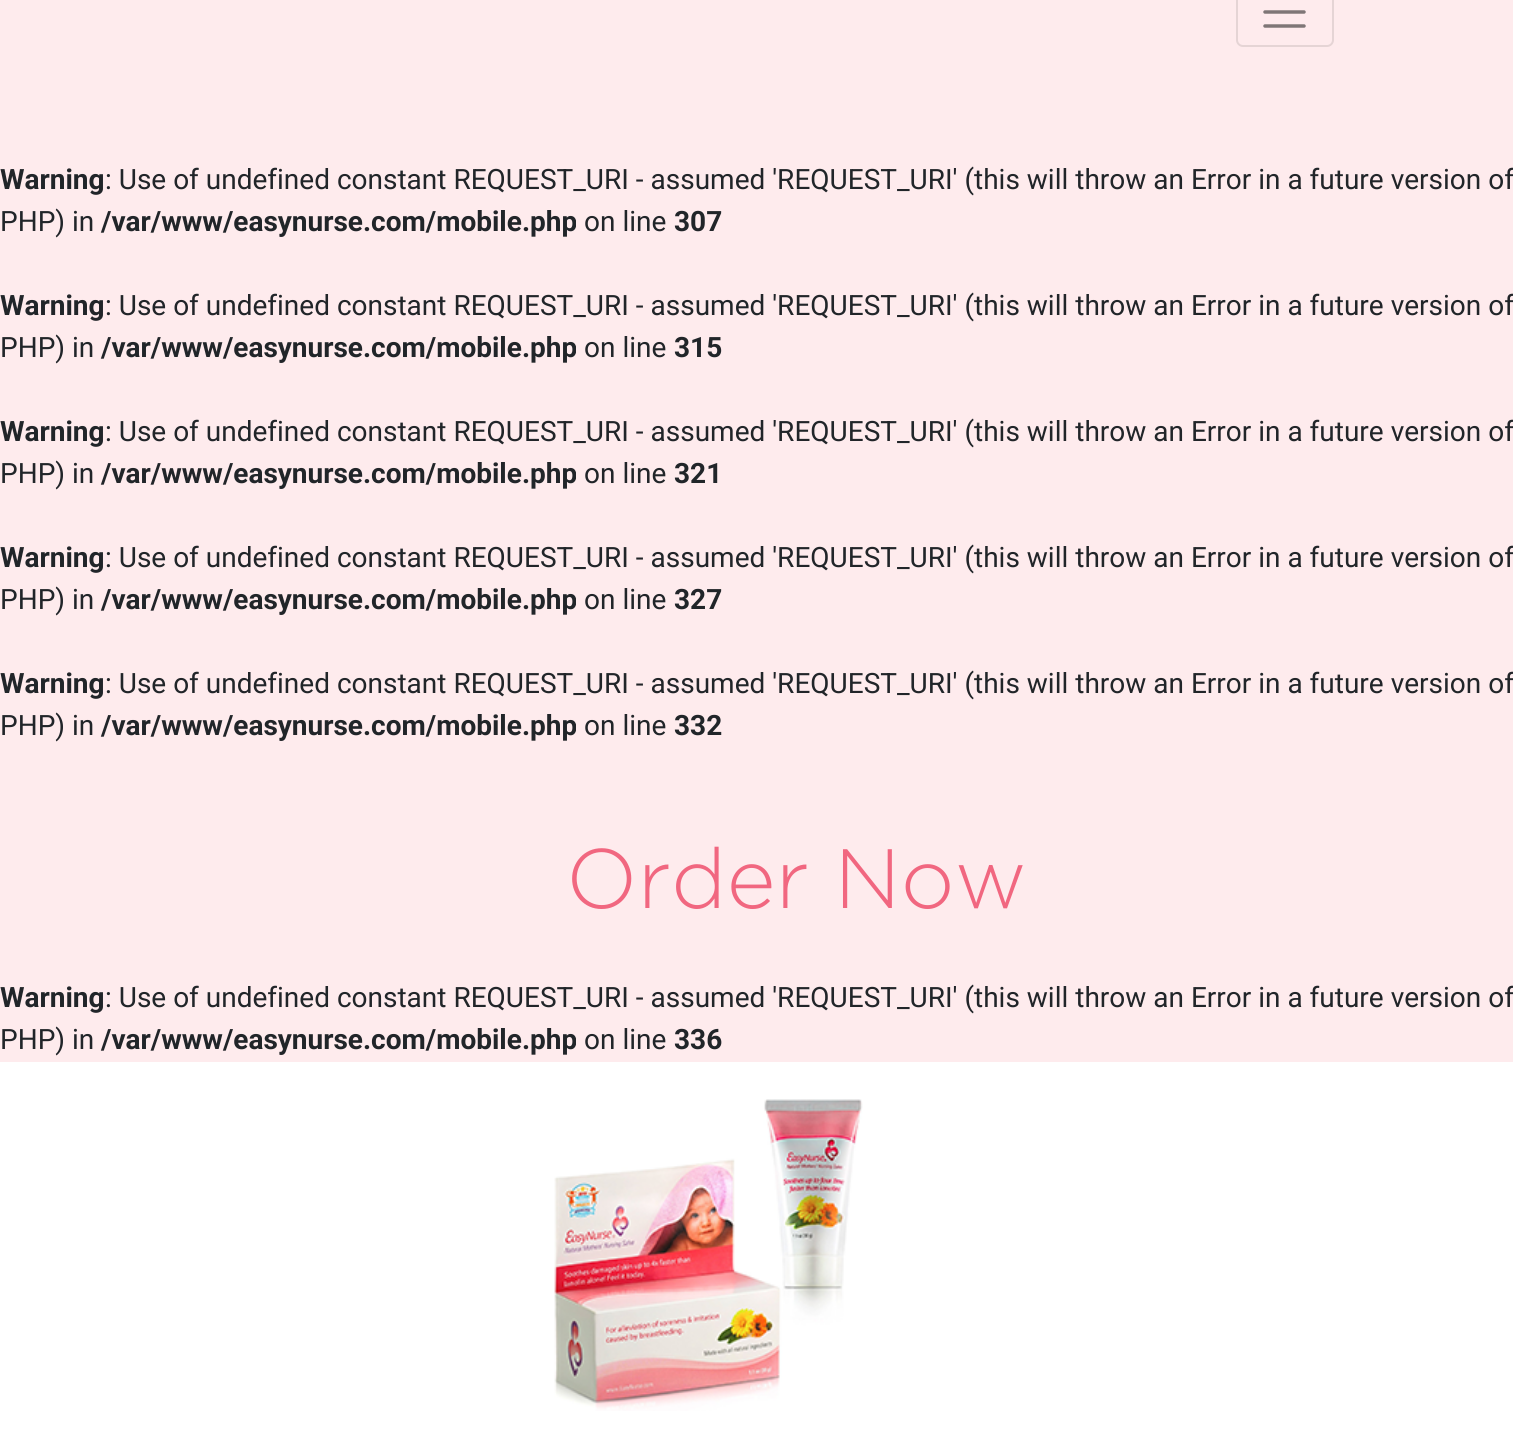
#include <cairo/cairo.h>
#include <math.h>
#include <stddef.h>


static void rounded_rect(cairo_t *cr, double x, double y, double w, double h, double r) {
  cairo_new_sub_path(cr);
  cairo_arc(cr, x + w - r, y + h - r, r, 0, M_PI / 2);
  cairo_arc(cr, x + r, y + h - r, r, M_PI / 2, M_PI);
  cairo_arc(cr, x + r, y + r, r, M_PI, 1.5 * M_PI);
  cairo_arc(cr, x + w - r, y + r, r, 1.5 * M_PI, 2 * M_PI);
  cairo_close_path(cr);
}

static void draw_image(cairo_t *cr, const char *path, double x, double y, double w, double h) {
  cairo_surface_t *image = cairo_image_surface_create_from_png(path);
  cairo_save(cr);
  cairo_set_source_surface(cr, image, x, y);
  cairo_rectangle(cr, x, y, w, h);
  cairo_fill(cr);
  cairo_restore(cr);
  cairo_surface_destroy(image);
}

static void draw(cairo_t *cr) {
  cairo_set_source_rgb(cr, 1, 1, 1);
  cairo_paint(cr);
  cairo_set_source_rgb(cr, 254 / 255.0, 235 / 255.0, 237 / 255.0);
  cairo_rectangle(cr, 0, 0, 1513, 1062);
  cairo_fill(cr);
  rounded_rect(cr, 1237, -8, 96, 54, 6);
  cairo_set_source_rgb(cr, 229 / 255.0, 212 / 255.0, 213 / 255.0);
  cairo_stroke(cr);
  cairo_new_path(cr);
  cairo_move_to(cr, 1265, -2);
  cairo_line_to(cr, 1304, -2);
  cairo_move_to(cr, 1265, 12);
  cairo_line_to(cr, 1304, 12);
  cairo_move_to(cr, 1265, 26);
  cairo_line_to(cr, 1304, 26);
  cairo_set_source_rgb(cr, 127 / 255.0, 118 / 255.0, 119 / 255.0);
  cairo_set_line_width(cr, 3.5);
  cairo_set_line_cap(cr, CAIRO_LINE_CAP_ROUND);
  cairo_stroke(cr);
  draw_image(cr, "images/1.png", 554, 1099, 309, 312);
  cairo_select_font_face(cr, "Roboto", CAIRO_FONT_SLANT_NORMAL, CAIRO_FONT_WEIGHT_BOLD);
  cairo_set_font_size(cr, 28);
  cairo_set_source_rgb(cr, 33 / 255.0, 37 / 255.0, 41 / 255.0);
  cairo_move_to(cr, 0, 189);
  cairo_show_text(cr, "Warning");
  cairo_select_font_face(cr, "Roboto", CAIRO_FONT_SLANT_NORMAL, CAIRO_FONT_WEIGHT_NORMAL);
  cairo_move_to(cr, 105, 189);
  cairo_show_text(cr, ": Use of undefined constant REQUEST_URI - assumed 'REQUEST_URI' (this will throw an Error in a future version of");
  cairo_move_to(cr, 0, 231);
  cairo_show_text(cr, "PHP) in");
  cairo_select_font_face(cr, "Roboto", CAIRO_FONT_SLANT_NORMAL, CAIRO_FONT_WEIGHT_BOLD);
  cairo_move_to(cr, 101, 231);
  cairo_show_text(cr, "/var/www/easynurse.com/mobile.php");
  cairo_select_font_face(cr, "Roboto", CAIRO_FONT_SLANT_NORMAL, CAIRO_FONT_WEIGHT_NORMAL);
  cairo_move_to(cr, 584, 231);
  cairo_show_text(cr, "on line");
  cairo_select_font_face(cr, "Roboto", CAIRO_FONT_SLANT_NORMAL, CAIRO_FONT_WEIGHT_BOLD);
  cairo_move_to(cr, 674, 231);
  cairo_show_text(cr, "307");
  cairo_move_to(cr, 0, 315);
  cairo_show_text(cr, "Warning");
  cairo_select_font_face(cr, "Roboto", CAIRO_FONT_SLANT_NORMAL, CAIRO_FONT_WEIGHT_NORMAL);
  cairo_move_to(cr, 105, 315);
  cairo_show_text(cr, ": Use of undefined constant REQUEST_URI - assumed 'REQUEST_URI' (this will throw an Error in a future version of");
  cairo_move_to(cr, 0, 357);
  cairo_show_text(cr, "PHP) in");
  cairo_select_font_face(cr, "Roboto", CAIRO_FONT_SLANT_NORMAL, CAIRO_FONT_WEIGHT_BOLD);
  cairo_move_to(cr, 101, 357);
  cairo_show_text(cr, "/var/www/easynurse.com/mobile.php");
  cairo_select_font_face(cr, "Roboto", CAIRO_FONT_SLANT_NORMAL, CAIRO_FONT_WEIGHT_NORMAL);
  cairo_move_to(cr, 584, 357);
  cairo_show_text(cr, "on line");
  cairo_select_font_face(cr, "Roboto", CAIRO_FONT_SLANT_NORMAL, CAIRO_FONT_WEIGHT_BOLD);
  cairo_move_to(cr, 674, 357);
  cairo_show_text(cr, "315");
  cairo_move_to(cr, 0, 441);
  cairo_show_text(cr, "Warning");
  cairo_select_font_face(cr, "Roboto", CAIRO_FONT_SLANT_NORMAL, CAIRO_FONT_WEIGHT_NORMAL);
  cairo_move_to(cr, 105, 441);
  cairo_show_text(cr, ": Use of undefined constant REQUEST_URI - assumed 'REQUEST_URI' (this will throw an Error in a future version of");
  cairo_move_to(cr, 0, 483);
  cairo_show_text(cr, "PHP) in");
  cairo_select_font_face(cr, "Roboto", CAIRO_FONT_SLANT_NORMAL, CAIRO_FONT_WEIGHT_BOLD);
  cairo_move_to(cr, 101, 483);
  cairo_show_text(cr, "/var/www/easynurse.com/mobile.php");
  cairo_select_font_face(cr, "Roboto", CAIRO_FONT_SLANT_NORMAL, CAIRO_FONT_WEIGHT_NORMAL);
  cairo_move_to(cr, 584, 483);
  cairo_show_text(cr, "on line");
  cairo_select_font_face(cr, "Roboto", CAIRO_FONT_SLANT_NORMAL, CAIRO_FONT_WEIGHT_BOLD);
  cairo_move_to(cr, 674, 483);
  cairo_show_text(cr, "321");
  cairo_move_to(cr, 0, 567);
  cairo_show_text(cr, "Warning");
  cairo_select_font_face(cr, "Roboto", CAIRO_FONT_SLANT_NORMAL, CAIRO_FONT_WEIGHT_NORMAL);
  cairo_move_to(cr, 105, 567);
  cairo_show_text(cr, ": Use of undefined constant REQUEST_URI - assumed 'REQUEST_URI' (this will throw an Error in a future version of");
  cairo_move_to(cr, 0, 609);
  cairo_show_text(cr, "PHP) in");
  cairo_select_font_face(cr, "Roboto", CAIRO_FONT_SLANT_NORMAL, CAIRO_FONT_WEIGHT_BOLD);
  cairo_move_to(cr, 101, 609);
  cairo_show_text(cr, "/var/www/easynurse.com/mobile.php");
  cairo_select_font_face(cr, "Roboto", CAIRO_FONT_SLANT_NORMAL, CAIRO_FONT_WEIGHT_NORMAL);
  cairo_move_to(cr, 584, 609);
  cairo_show_text(cr, "on line");
  cairo_select_font_face(cr, "Roboto", CAIRO_FONT_SLANT_NORMAL, CAIRO_FONT_WEIGHT_BOLD);
  cairo_move_to(cr, 674, 609);
  cairo_show_text(cr, "327");
  cairo_move_to(cr, 0, 693);
  cairo_show_text(cr, "Warning");
  cairo_select_font_face(cr, "Roboto", CAIRO_FONT_SLANT_NORMAL, CAIRO_FONT_WEIGHT_NORMAL);
  cairo_move_to(cr, 105, 693);
  cairo_show_text(cr, ": Use of undefined constant REQUEST_URI - assumed 'REQUEST_URI' (this will throw an Error in a future version of");
  cairo_move_to(cr, 0, 735);
  cairo_show_text(cr, "PHP) in");
  cairo_select_font_face(cr, "Roboto", CAIRO_FONT_SLANT_NORMAL, CAIRO_FONT_WEIGHT_BOLD);
  cairo_move_to(cr, 101, 735);
  cairo_show_text(cr, "/var/www/easynurse.com/mobile.php");
  cairo_select_font_face(cr, "Roboto", CAIRO_FONT_SLANT_NORMAL, CAIRO_FONT_WEIGHT_NORMAL);
  cairo_move_to(cr, 584, 735);
  cairo_show_text(cr, "on line");
  cairo_select_font_face(cr, "Roboto", CAIRO_FONT_SLANT_NORMAL, CAIRO_FONT_WEIGHT_BOLD);
  cairo_move_to(cr, 674, 735);
  cairo_show_text(cr, "332");
  cairo_select_font_face(cr, "Gotham Light", CAIRO_FONT_SLANT_NORMAL, CAIRO_FONT_WEIGHT_NORMAL);
  cairo_set_font_size(cr, 84);
  cairo_set_source_rgb(cr, 241 / 255.0, 103 / 255.0, 128 / 255.0);
  cairo_move_to(cr, 566, 908);
  cairo_show_text(cr, "Order Now");
  cairo_select_font_face(cr, "Roboto", CAIRO_FONT_SLANT_NORMAL, CAIRO_FONT_WEIGHT_BOLD);
  cairo_set_font_size(cr, 28);
  cairo_set_source_rgb(cr, 33 / 255.0, 37 / 255.0, 41 / 255.0);
  cairo_move_to(cr, 0, 1007);
  cairo_show_text(cr, "Warning");
  cairo_select_font_face(cr, "Roboto", CAIRO_FONT_SLANT_NORMAL, CAIRO_FONT_WEIGHT_NORMAL);
  cairo_move_to(cr, 105, 1007);
  cairo_show_text(cr, ": Use of undefined constant REQUEST_URI - assumed 'REQUEST_URI' (this will throw an Error in a future version of");
  cairo_move_to(cr, 0, 1049);
  cairo_show_text(cr, "PHP) in");
  cairo_select_font_face(cr, "Roboto", CAIRO_FONT_SLANT_NORMAL, CAIRO_FONT_WEIGHT_BOLD);
  cairo_move_to(cr, 101, 1049);
  cairo_show_text(cr, "/var/www/easynurse.com/mobile.php");
  cairo_select_font_face(cr, "Roboto", CAIRO_FONT_SLANT_NORMAL, CAIRO_FONT_WEIGHT_NORMAL);
  cairo_move_to(cr, 584, 1049);
  cairo_show_text(cr, "on line");
  cairo_select_font_face(cr, "Roboto", CAIRO_FONT_SLANT_NORMAL, CAIRO_FONT_WEIGHT_BOLD);
  cairo_move_to(cr, 674, 1049);
  cairo_show_text(cr, "336");
}

int main(void) {
  cairo_surface_t *surface = cairo_image_surface_create(CAIRO_FORMAT_RGB24, 1513, 1443);
  cairo_t *cr = cairo_create(surface);
  cairo_font_options_t *options = cairo_font_options_create();
  cairo_font_options_set_hint_metrics(options, CAIRO_HINT_METRICS_OFF);
  cairo_font_options_set_hint_style(options, CAIRO_HINT_STYLE_NONE);
  cairo_set_font_options(cr, options);
  cairo_set_miter_limit(cr, 4);
  draw(cr);
  cairo_surface_write_to_png(surface, "out.png");
  cairo_font_options_destroy(options);
  cairo_destroy(cr);
  cairo_surface_destroy(surface);
  return 0;
}
